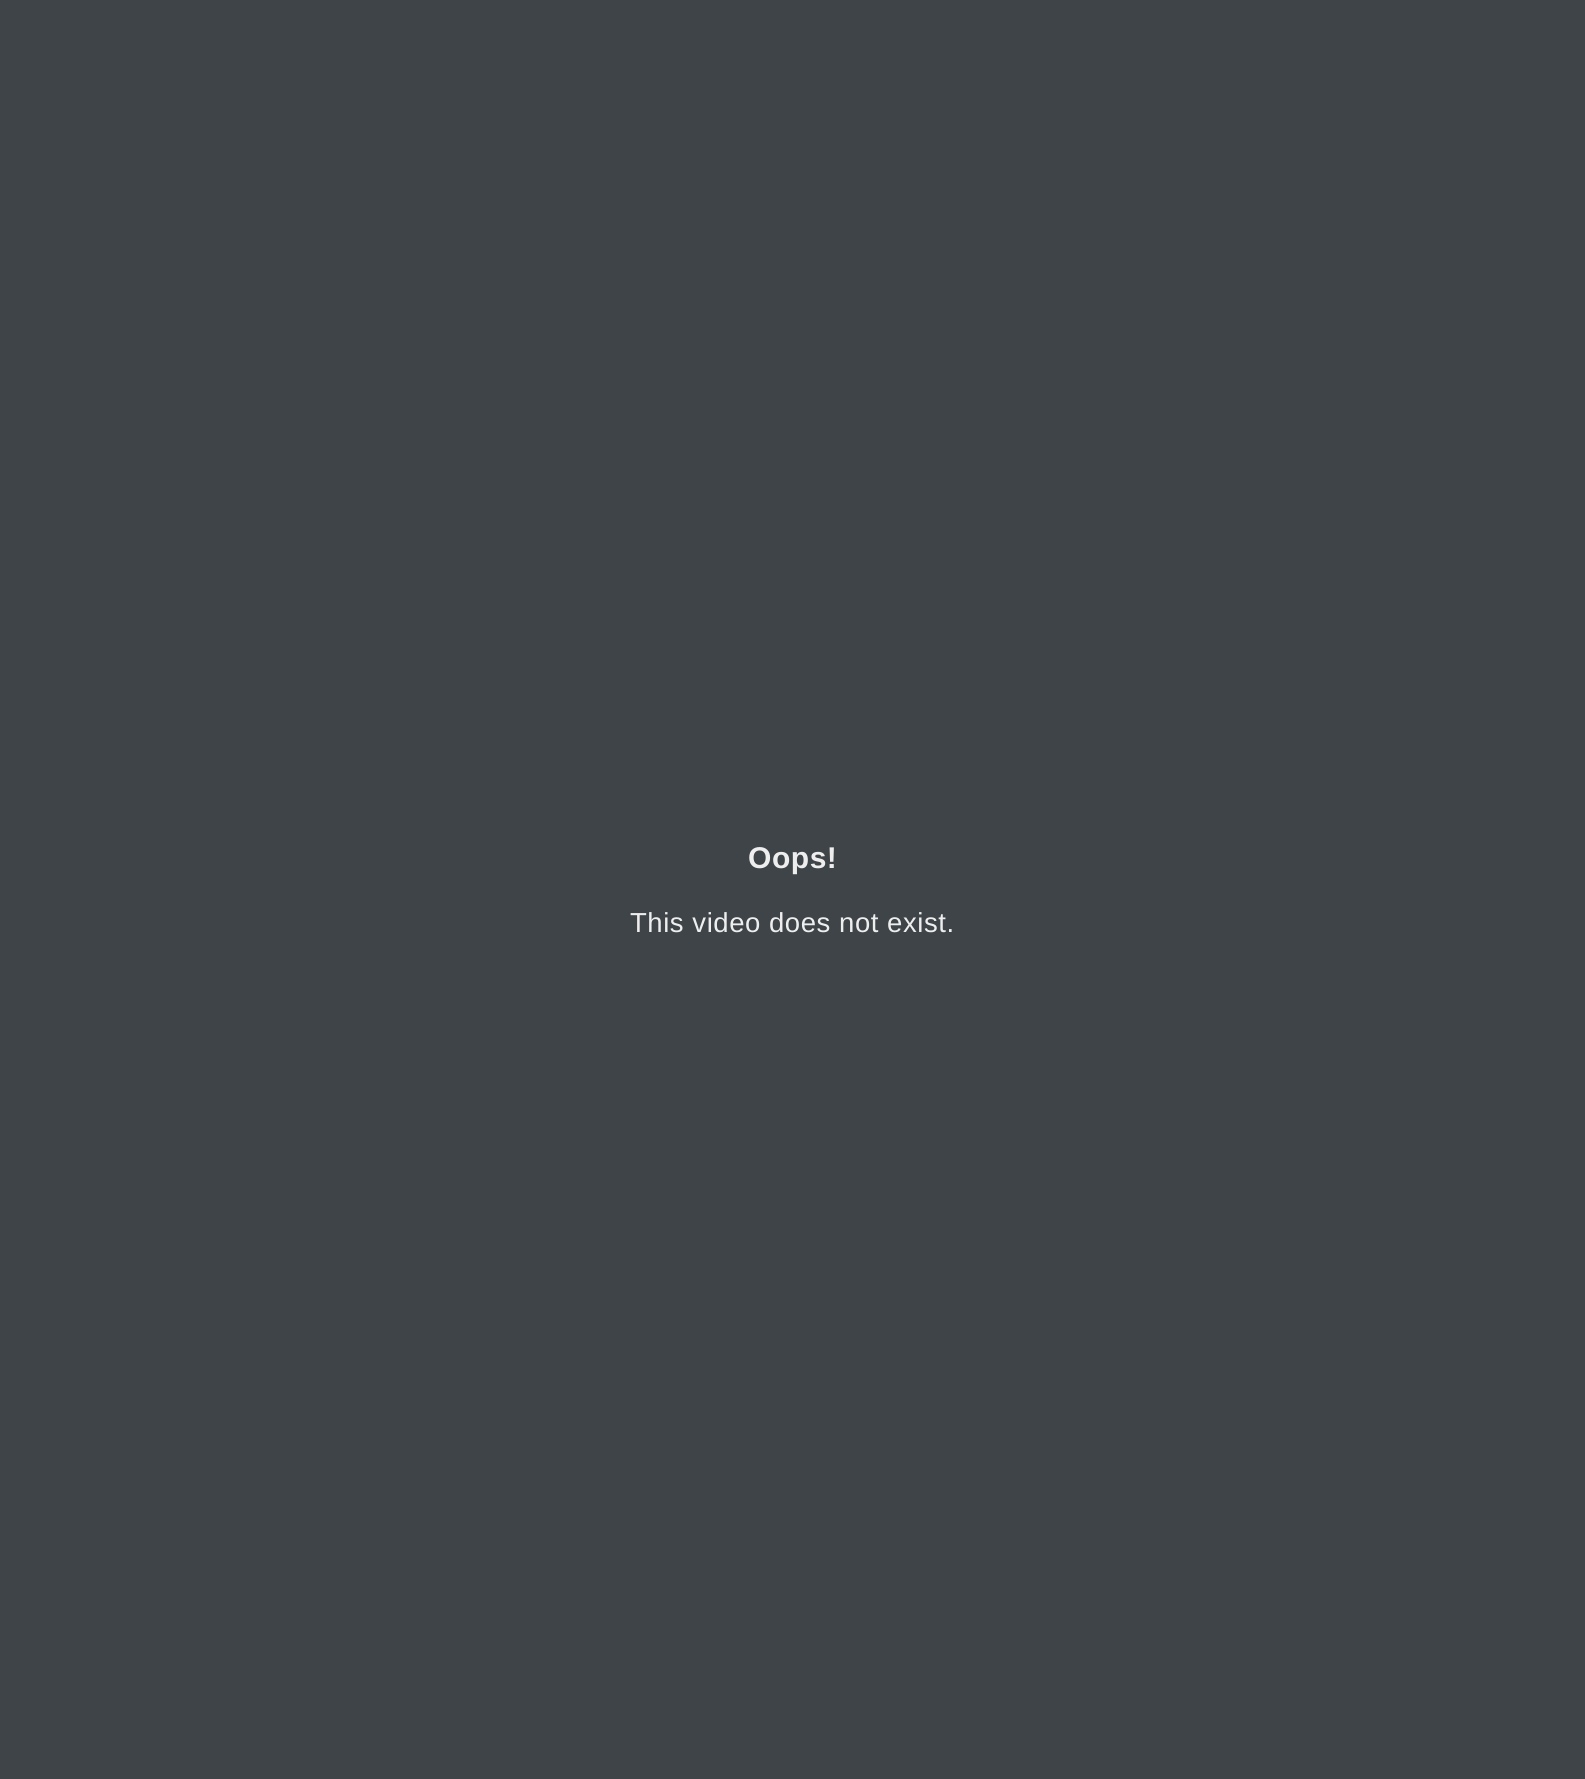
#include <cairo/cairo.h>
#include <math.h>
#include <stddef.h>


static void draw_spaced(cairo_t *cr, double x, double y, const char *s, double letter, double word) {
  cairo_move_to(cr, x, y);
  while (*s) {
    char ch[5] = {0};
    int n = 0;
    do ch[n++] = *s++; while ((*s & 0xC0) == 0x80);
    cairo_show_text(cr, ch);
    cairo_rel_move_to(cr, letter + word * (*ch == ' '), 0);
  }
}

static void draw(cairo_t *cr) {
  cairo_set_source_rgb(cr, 62 / 255.0, 68 / 255.0, 72 / 255.0);
  cairo_paint(cr);
  cairo_select_font_face(cr, "Liberation Sans", CAIRO_FONT_SLANT_NORMAL, CAIRO_FONT_WEIGHT_BOLD);
  cairo_set_font_size(cr, 30);
  cairo_set_source_rgb(cr, 238 / 255.0, 238 / 255.0, 238 / 255.0);
  draw_spaced(cr, 748, 868, "Oops!", 0.55, 0);
  cairo_select_font_face(cr, "Liberation Sans", CAIRO_FONT_SLANT_NORMAL, CAIRO_FONT_WEIGHT_NORMAL);
  cairo_set_font_size(cr, 27.5);
  draw_spaced(cr, 630, 932, "This video does not exist.", 0.55, 0);
}

int main(void) {
  cairo_surface_t *surface = cairo_image_surface_create(CAIRO_FORMAT_RGB24, 1585, 1779);
  cairo_t *cr = cairo_create(surface);
  cairo_font_options_t *options = cairo_font_options_create();
  cairo_font_options_set_hint_metrics(options, CAIRO_HINT_METRICS_OFF);
  cairo_font_options_set_hint_style(options, CAIRO_HINT_STYLE_NONE);
  cairo_set_font_options(cr, options);
  cairo_set_miter_limit(cr, 4);
  draw(cr);
  cairo_surface_write_to_png(surface, "out.png");
  cairo_font_options_destroy(options);
  cairo_destroy(cr);
  cairo_surface_destroy(surface);
  return 0;
}
